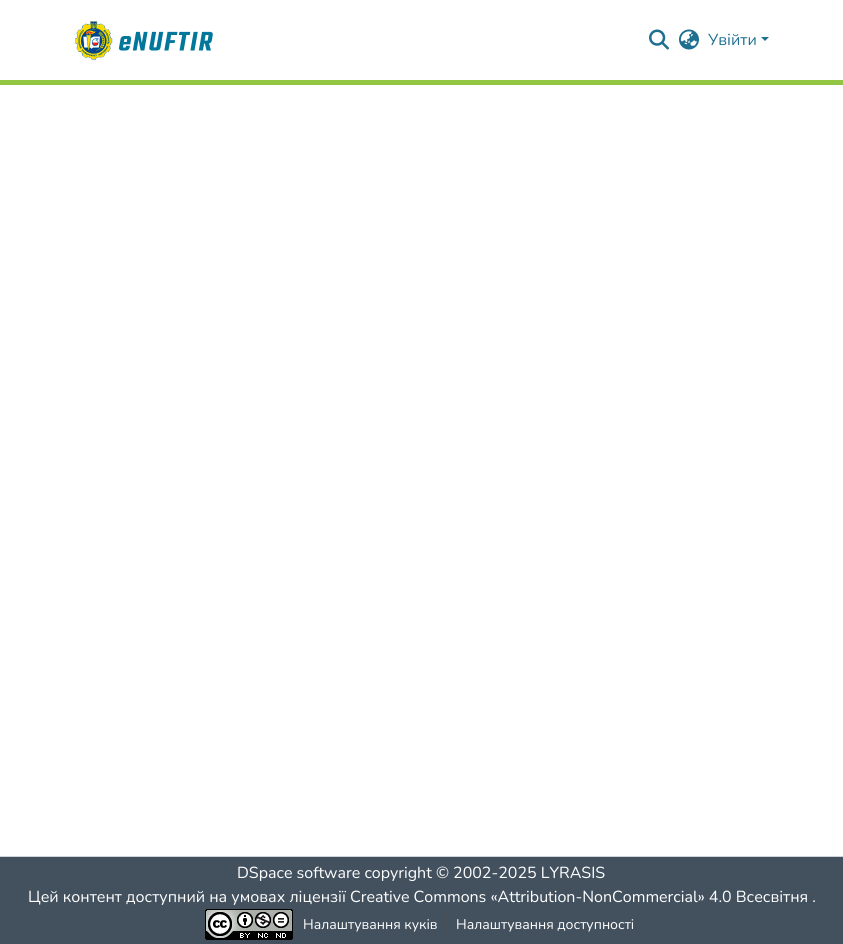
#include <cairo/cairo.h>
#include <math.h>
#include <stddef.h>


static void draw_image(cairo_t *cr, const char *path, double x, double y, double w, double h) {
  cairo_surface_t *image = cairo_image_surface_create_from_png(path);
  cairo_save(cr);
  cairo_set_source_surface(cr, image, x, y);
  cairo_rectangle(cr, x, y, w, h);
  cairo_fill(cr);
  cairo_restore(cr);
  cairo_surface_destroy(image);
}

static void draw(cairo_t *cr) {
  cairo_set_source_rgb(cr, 1, 1, 1);
  cairo_paint(cr);
  cairo_set_source_rgb(cr, 146 / 255.0, 198 / 255.0, 66 / 255.0);
  cairo_rectangle(cr, 0, 80, 843, 5);
  cairo_fill(cr);
  draw_image(cr, "images/1.png", 75, 21, 138, 39);
  draw_image(cr, "images/2.png", 649, 29, 20, 21);
  draw_image(cr, "images/3.png", 679, 29, 20, 21);
  cairo_set_source_rgb(cr, 30 / 255.0, 111 / 255.0, 144 / 255.0);
  cairo_new_path(cr);
  cairo_move_to(cr, 761, 37);
  cairo_line_to(cr, 769, 37);
  cairo_line_to(cr, 765, 41);
  cairo_close_path(cr);
  cairo_fill(cr);
  cairo_set_source_rgb(cr, 67 / 255.0, 81 / 255.0, 95 / 255.0);
  cairo_rectangle(cr, 0, 857, 843, 87);
  cairo_fill(cr);
  cairo_set_source_rgb(cr, 206 / 255.0, 212 / 255.0, 218 / 255.0);
  cairo_rectangle(cr, 0, 856, 843, 1);
  cairo_fill(cr);
  draw_image(cr, "images/4.png", 205, 909, 88, 31);
  cairo_set_source_rgb(cr, 73 / 255.0, 80 / 255.0, 87 / 255.0);
  cairo_rectangle(cr, 446, 913, 1, 23);
  cairo_fill(cr);
  cairo_select_font_face(cr, "Nunito", CAIRO_FONT_SLANT_NORMAL, CAIRO_FONT_WEIGHT_NORMAL);
  cairo_set_font_size(cr, 16);
  cairo_set_source_rgb(cr, 30 / 255.0, 111 / 255.0, 144 / 255.0);
  cairo_move_to(cr, 708, 45);
  cairo_show_text(cr, "Увійти");
  cairo_set_source_rgb(cr, 1, 1, 1);
  cairo_move_to(cr, 237, 878);
  cairo_show_text(cr, "DSpace software copyright © 2002-2025 LYRASIS");
  cairo_move_to(cr, 28, 902);
  cairo_show_text(cr, "Цей контент доступний на умовах ліцензії Creative Commons «Attribution-NonCommercial» 4.0 Всесвітня .");
  cairo_set_font_size(cr, 14);
  cairo_move_to(cr, 303, 929);
  cairo_show_text(cr, "Налаштування куків");
  cairo_move_to(cr, 456, 929);
  cairo_show_text(cr, "Налаштування доступності");
}

int main(void) {
  cairo_surface_t *surface = cairo_image_surface_create(CAIRO_FORMAT_RGB24, 843, 944);
  cairo_t *cr = cairo_create(surface);
  cairo_font_options_t *options = cairo_font_options_create();
  cairo_font_options_set_hint_metrics(options, CAIRO_HINT_METRICS_OFF);
  cairo_font_options_set_hint_style(options, CAIRO_HINT_STYLE_NONE);
  cairo_set_font_options(cr, options);
  cairo_set_miter_limit(cr, 4);
  draw(cr);
  cairo_surface_write_to_png(surface, "out.png");
  cairo_font_options_destroy(options);
  cairo_destroy(cr);
  cairo_surface_destroy(surface);
  return 0;
}
